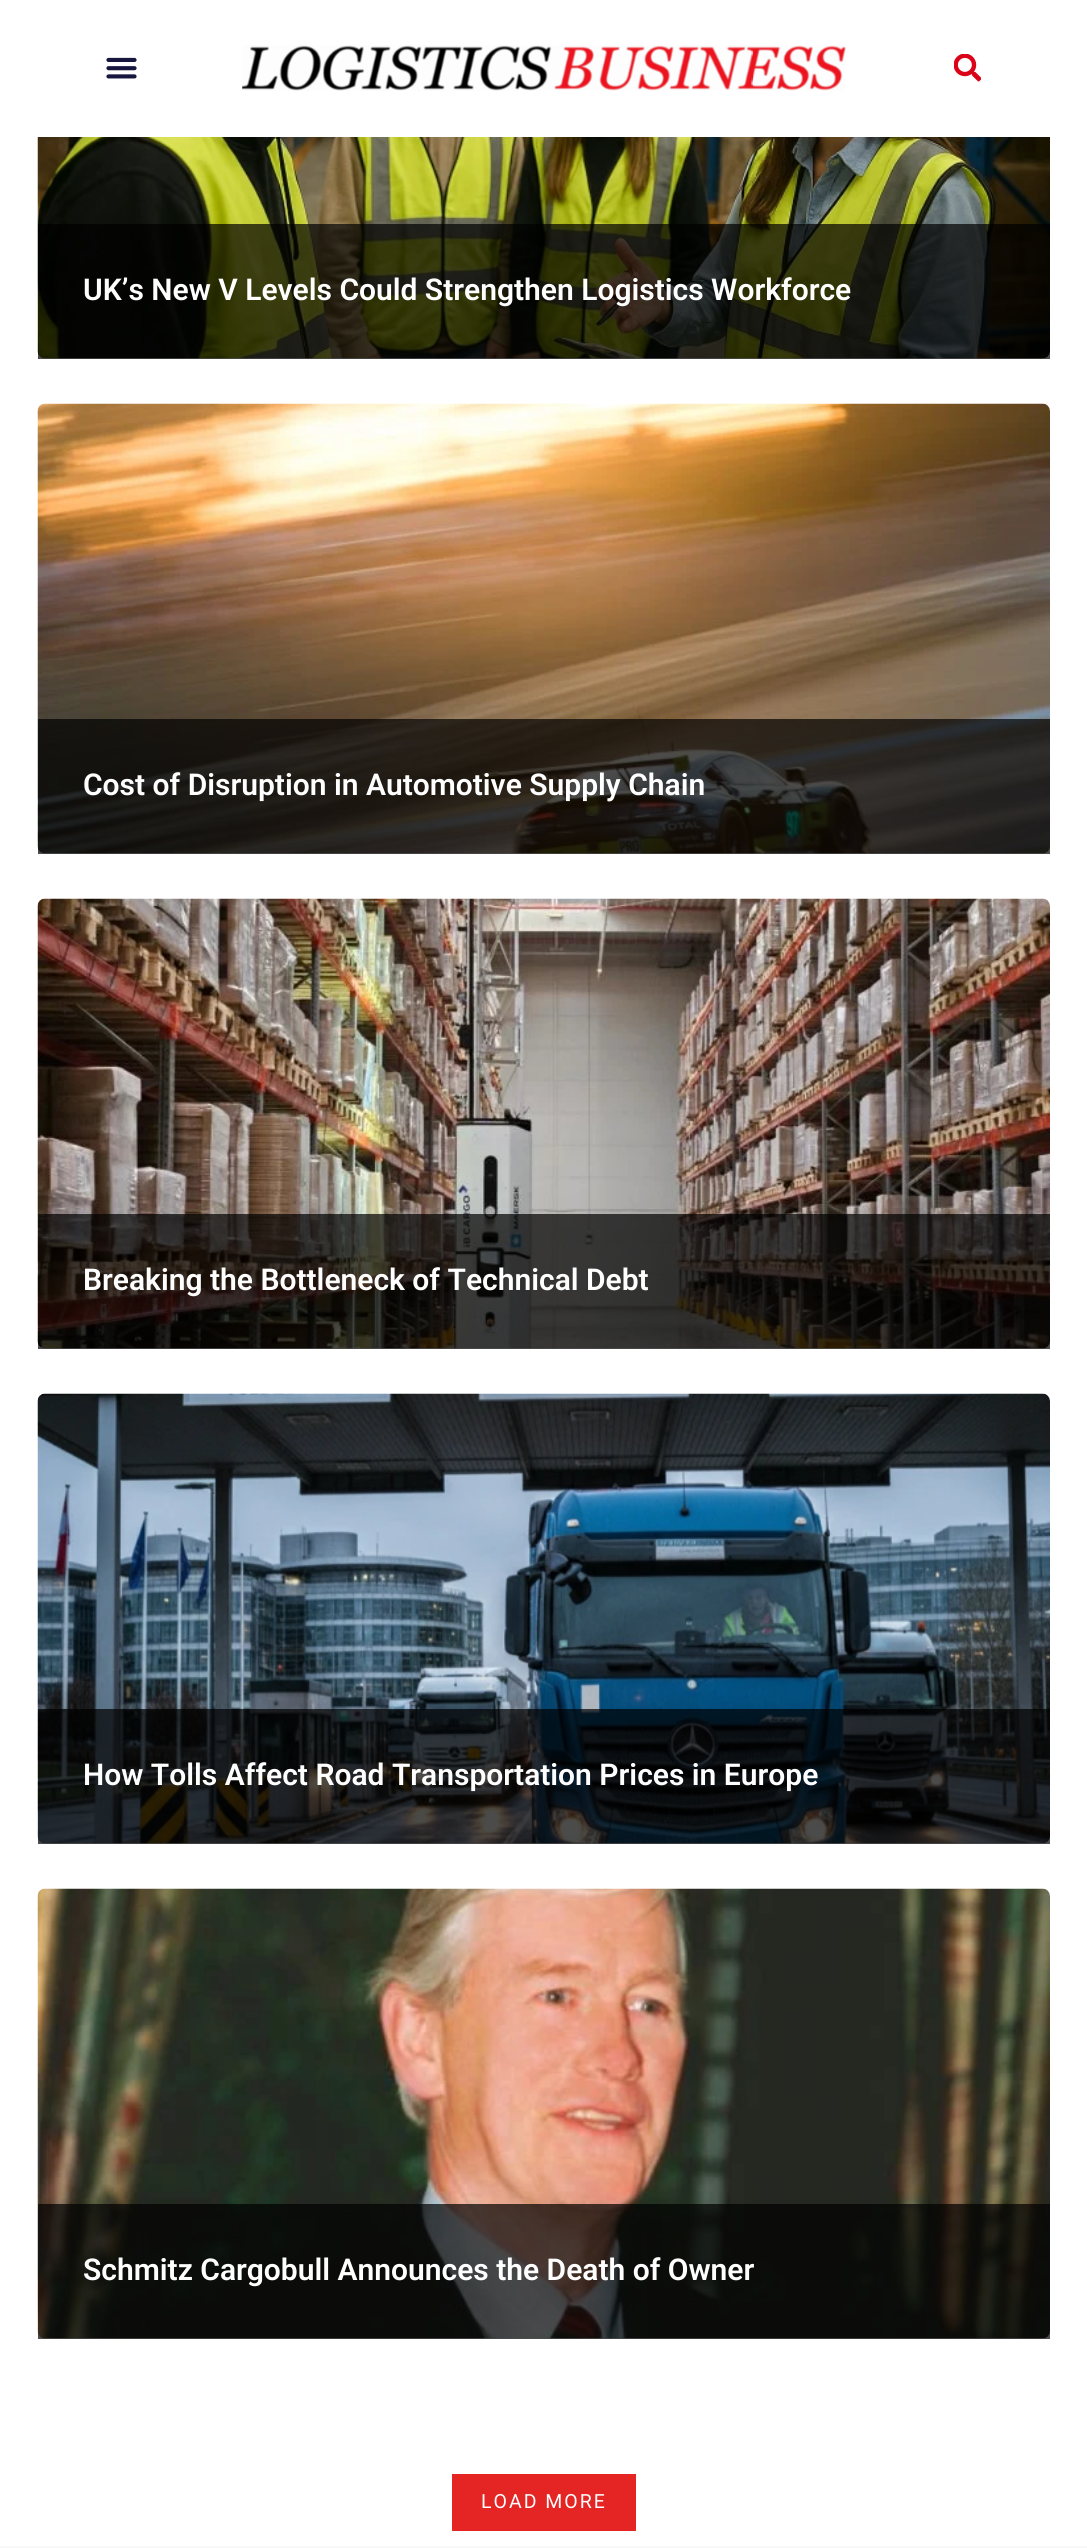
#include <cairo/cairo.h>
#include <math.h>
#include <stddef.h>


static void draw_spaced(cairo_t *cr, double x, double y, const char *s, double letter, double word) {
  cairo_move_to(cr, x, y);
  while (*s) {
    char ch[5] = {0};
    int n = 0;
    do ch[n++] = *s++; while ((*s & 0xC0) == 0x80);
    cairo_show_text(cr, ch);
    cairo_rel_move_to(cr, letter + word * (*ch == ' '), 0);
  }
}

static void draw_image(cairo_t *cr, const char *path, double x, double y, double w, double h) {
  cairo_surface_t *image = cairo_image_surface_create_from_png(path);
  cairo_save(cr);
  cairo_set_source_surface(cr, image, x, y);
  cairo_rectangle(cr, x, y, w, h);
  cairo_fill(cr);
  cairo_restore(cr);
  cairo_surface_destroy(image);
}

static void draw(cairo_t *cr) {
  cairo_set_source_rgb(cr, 1, 1, 1);
  cairo_paint(cr);
  draw_image(cr, "images/1.png", 106, 57, 31, 22);
  draw_image(cr, "images/2.png", 242, 45, 604, 46);
  draw_image(cr, "images/3.png", 954, 54, 27, 28);
  draw_image(cr, "images/4.png", 37, 137, 1013, 222);
  cairo_set_source_rgba(cr, 0, 0, 0, 0.7);
  cairo_rectangle(cr, 38, 224, 1012, 135);
  cairo_fill(cr);
  draw_image(cr, "images/5.png", 37, 403, 1013, 451);
  cairo_rectangle(cr, 38, 719, 1012, 135);
  cairo_fill(cr);
  draw_image(cr, "images/6.png", 37, 898, 1013, 451);
  cairo_rectangle(cr, 38, 1214, 1012, 135);
  cairo_fill(cr);
  draw_image(cr, "images/7.png", 37, 1393, 1013, 451);
  cairo_rectangle(cr, 38, 1709, 1012, 135);
  cairo_fill(cr);
  draw_image(cr, "images/8.png", 37, 1888, 1013, 451);
  cairo_rectangle(cr, 38, 2204, 1012, 135);
  cairo_fill(cr);
  cairo_set_source_rgb(cr, 229 / 255.0, 36 / 255.0, 36 / 255.0);
  cairo_rectangle(cr, 452, 2474, 184, 57);
  cairo_fill(cr);
  cairo_set_source_rgb(cr, 248 / 255.0, 248 / 255.0, 248 / 255.0);
  cairo_rectangle(cr, 0, 2546, 1087, 2);
  cairo_fill(cr);
  cairo_select_font_face(cr, "Roboto SemiBold", CAIRO_FONT_SLANT_NORMAL, CAIRO_FONT_WEIGHT_NORMAL);
  cairo_set_font_size(cr, 30);
  cairo_set_source_rgb(cr, 1, 1, 1);
  cairo_move_to(cr, 83, 300);
  cairo_show_text(cr, "UK’s New V Levels Could Strengthen Logistics Workforce");
  cairo_move_to(cr, 83, 795);
  cairo_show_text(cr, "Cost of Disruption in Automotive Supply Chain");
  cairo_move_to(cr, 83, 1290);
  cairo_show_text(cr, "Breaking the Bottleneck of Technical Debt");
  cairo_move_to(cr, 83, 1785);
  cairo_show_text(cr, "How Tolls Affect Road Transportation Prices in Europe");
  cairo_move_to(cr, 83, 2280);
  cairo_show_text(cr, "Schmitz Cargobull Announces the Death of Owner");
  cairo_select_font_face(cr, "Roboto", CAIRO_FONT_SLANT_NORMAL, CAIRO_FONT_WEIGHT_NORMAL);
  cairo_set_font_size(cr, 19.5);
  draw_spaced(cr, 481, 2508, "LOAD MORE", 2, 0);
}

int main(void) {
  cairo_surface_t *surface = cairo_image_surface_create(CAIRO_FORMAT_RGB24, 1087, 2548);
  cairo_t *cr = cairo_create(surface);
  cairo_font_options_t *options = cairo_font_options_create();
  cairo_font_options_set_hint_metrics(options, CAIRO_HINT_METRICS_OFF);
  cairo_font_options_set_hint_style(options, CAIRO_HINT_STYLE_NONE);
  cairo_set_font_options(cr, options);
  cairo_set_miter_limit(cr, 4);
  draw(cr);
  cairo_surface_write_to_png(surface, "out.png");
  cairo_font_options_destroy(options);
  cairo_destroy(cr);
  cairo_surface_destroy(surface);
  return 0;
}
